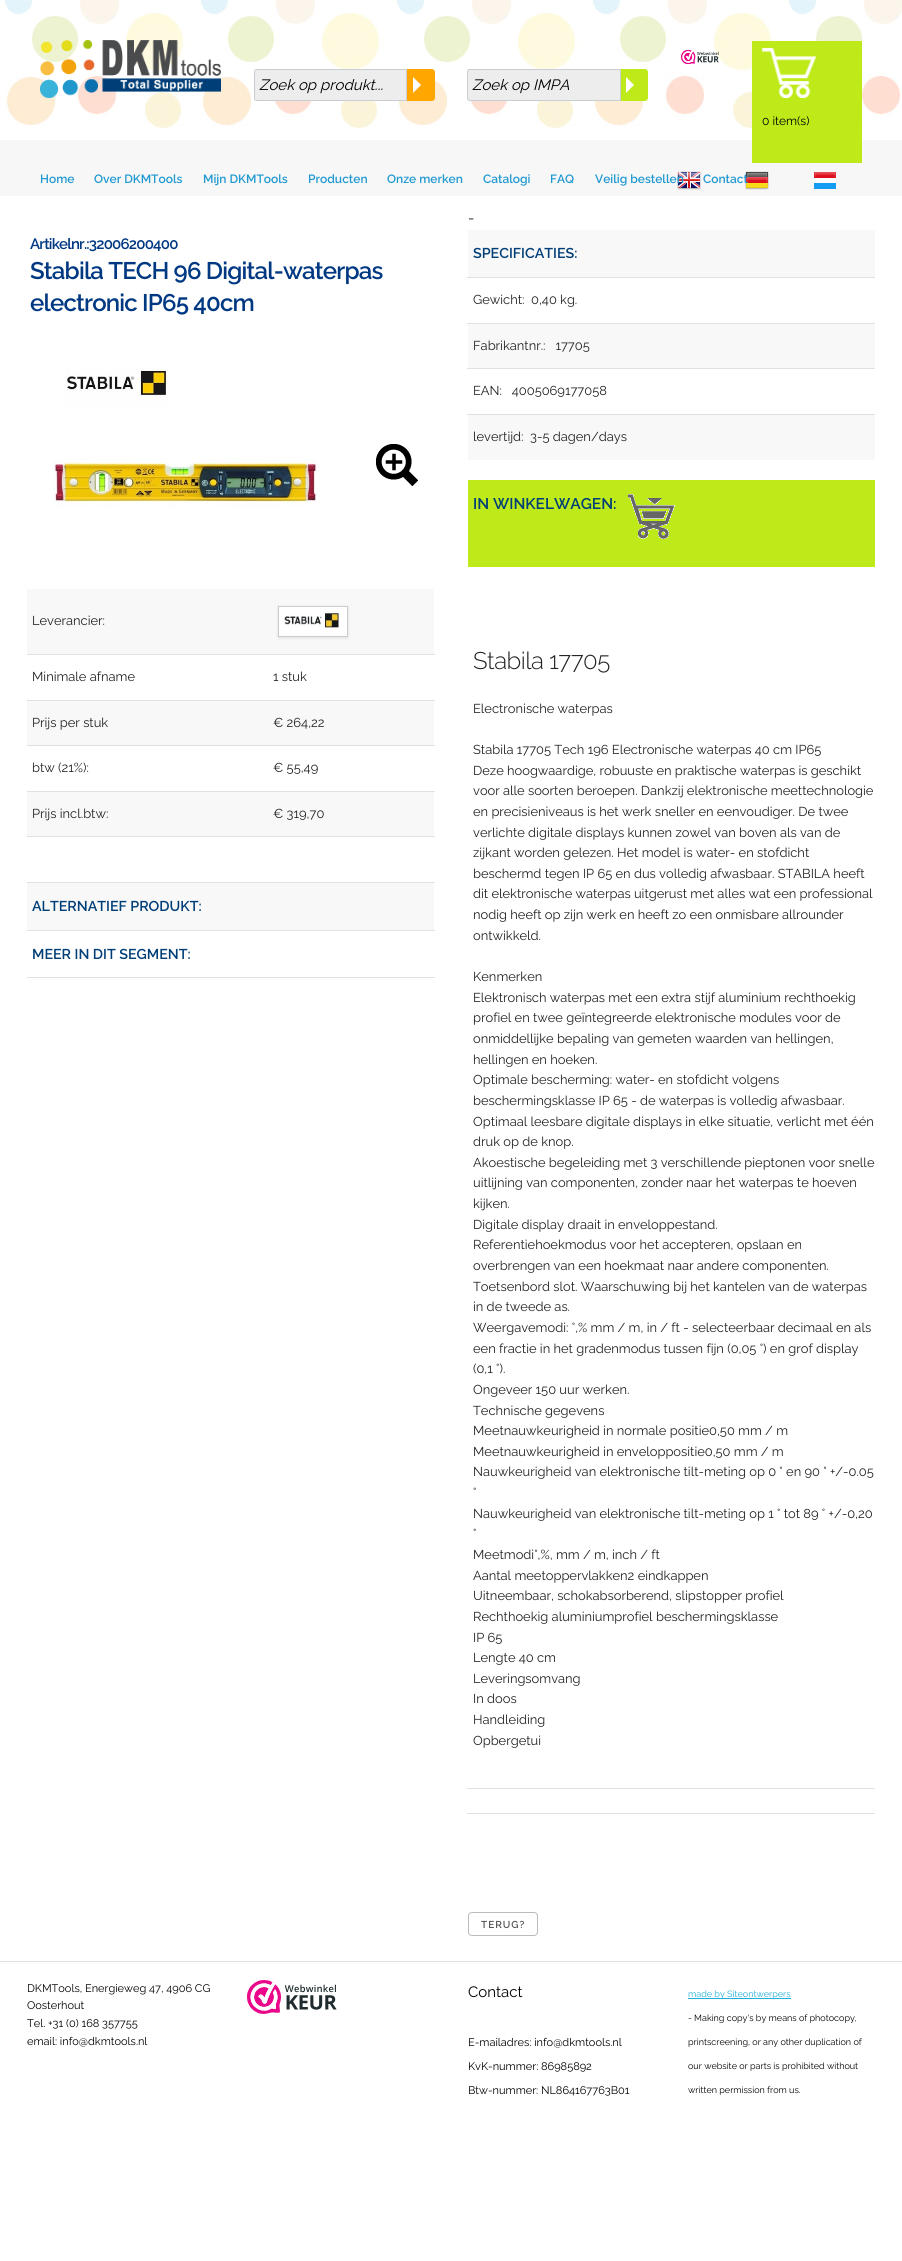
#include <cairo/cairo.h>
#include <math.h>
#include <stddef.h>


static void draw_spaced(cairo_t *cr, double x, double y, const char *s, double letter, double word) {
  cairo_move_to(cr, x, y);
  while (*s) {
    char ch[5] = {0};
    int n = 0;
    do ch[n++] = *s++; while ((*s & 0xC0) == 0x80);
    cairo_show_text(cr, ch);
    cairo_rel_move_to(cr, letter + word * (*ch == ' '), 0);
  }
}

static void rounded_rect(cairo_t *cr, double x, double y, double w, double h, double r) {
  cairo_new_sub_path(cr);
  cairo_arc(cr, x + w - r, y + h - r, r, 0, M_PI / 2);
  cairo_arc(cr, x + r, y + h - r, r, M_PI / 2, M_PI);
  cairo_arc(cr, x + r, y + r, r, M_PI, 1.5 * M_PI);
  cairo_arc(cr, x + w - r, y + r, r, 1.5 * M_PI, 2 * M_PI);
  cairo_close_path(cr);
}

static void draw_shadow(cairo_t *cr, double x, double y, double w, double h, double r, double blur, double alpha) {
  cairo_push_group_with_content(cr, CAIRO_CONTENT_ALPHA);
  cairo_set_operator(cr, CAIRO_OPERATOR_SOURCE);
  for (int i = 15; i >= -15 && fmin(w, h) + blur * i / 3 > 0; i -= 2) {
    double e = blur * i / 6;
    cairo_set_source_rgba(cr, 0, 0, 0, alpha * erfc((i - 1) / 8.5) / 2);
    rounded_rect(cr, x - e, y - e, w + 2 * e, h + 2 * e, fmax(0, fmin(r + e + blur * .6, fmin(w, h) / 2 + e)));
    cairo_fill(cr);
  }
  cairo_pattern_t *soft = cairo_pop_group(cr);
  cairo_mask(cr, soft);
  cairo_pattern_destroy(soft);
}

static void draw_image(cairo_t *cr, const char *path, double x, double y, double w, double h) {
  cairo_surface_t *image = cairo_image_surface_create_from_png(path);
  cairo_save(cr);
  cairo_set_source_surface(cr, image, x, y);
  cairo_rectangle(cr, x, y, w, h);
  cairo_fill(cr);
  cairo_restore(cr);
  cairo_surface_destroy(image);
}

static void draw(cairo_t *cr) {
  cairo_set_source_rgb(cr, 1, 1, 1);
  cairo_paint(cr);
  draw_image(cr, "images/1.png", 5, 0, 897, 128);
  draw_image(cr, "images/2.png", 40, 40, 181, 58);
  draw_image(cr, "images/3.png", 681, 49, 38, 16);
  cairo_set_source_rgb(cr, 237 / 255.0, 237 / 255.0, 237 / 255.0);
  cairo_new_path(cr);
  cairo_move_to(cr, 257, 69.5);
  cairo_line_to(cr, 406.5, 69.5);
  cairo_line_to(cr, 406.5, 100.5);
  cairo_line_to(cr, 257, 100.5);
  cairo_curve_to(cr, 255.5, 100.5, 254.5, 99.5, 254.5, 98);
  cairo_line_to(cr, 254.5, 72);
  cairo_curve_to(cr, 254.5, 70.5, 255.5, 69.5, 257, 69.5);
  cairo_close_path(cr);
  cairo_fill_preserve(cr);
  cairo_set_source_rgb(cr, 199 / 255.0, 205 / 255.0, 210 / 255.0);
  cairo_set_line_width(cr, 1);
  cairo_stroke(cr);
  cairo_set_source_rgb(cr, 1, 166 / 255.0, 0);
  cairo_new_path(cr);
  cairo_move_to(cr, 407, 69);
  cairo_line_to(cr, 432, 69);
  cairo_curve_to(cr, 433.5, 69, 435, 70.5, 435, 72);
  cairo_line_to(cr, 435, 98);
  cairo_curve_to(cr, 435, 99.5, 433.5, 101, 432, 101);
  cairo_line_to(cr, 407, 101);
  cairo_close_path(cr);
  cairo_fill(cr);
  cairo_set_source_rgb(cr, 1, 1, 1);
  cairo_new_path(cr);
  cairo_move_to(cr, 413, 93);
  cairo_line_to(cr, 413, 77);
  cairo_line_to(cr, 421, 85);
  cairo_close_path(cr);
  cairo_fill(cr);
  cairo_set_source_rgb(cr, 237 / 255.0, 237 / 255.0, 237 / 255.0);
  cairo_new_path(cr);
  cairo_move_to(cr, 470, 69.5);
  cairo_line_to(cr, 620.5, 69.5);
  cairo_line_to(cr, 620.5, 100.5);
  cairo_line_to(cr, 470, 100.5);
  cairo_curve_to(cr, 468.5, 100.5, 467.5, 99.5, 467.5, 98);
  cairo_line_to(cr, 467.5, 72);
  cairo_curve_to(cr, 467.5, 70.5, 468.5, 69.5, 470, 69.5);
  cairo_close_path(cr);
  cairo_fill_preserve(cr);
  cairo_set_source_rgb(cr, 199 / 255.0, 205 / 255.0, 210 / 255.0);
  cairo_stroke(cr);
  cairo_set_source_rgb(cr, 189 / 255.0, 234 / 255.0, 24 / 255.0);
  cairo_new_path(cr);
  cairo_move_to(cr, 621, 69);
  cairo_line_to(cr, 645, 69);
  cairo_curve_to(cr, 646.5, 69, 648, 70.5, 648, 72);
  cairo_line_to(cr, 648, 98);
  cairo_curve_to(cr, 648, 99.5, 646.5, 101, 645, 101);
  cairo_line_to(cr, 621, 101);
  cairo_close_path(cr);
  cairo_fill(cr);
  cairo_set_source_rgb(cr, 1, 1, 1);
  cairo_new_path(cr);
  cairo_move_to(cr, 626, 93);
  cairo_line_to(cr, 626, 77);
  cairo_line_to(cr, 634, 85);
  cairo_close_path(cr);
  cairo_fill(cr);
  cairo_set_source_rgb(cr, 247 / 255.0, 247 / 255.0, 247 / 255.0);
  cairo_rectangle(cr, 0, 140, 902, 56);
  cairo_fill(cr);
  cairo_set_source_rgb(cr, 189 / 255.0, 234 / 255.0, 24 / 255.0);
  cairo_rectangle(cr, 752, 41, 110, 122);
  cairo_fill(cr);
  draw_image(cr, "images/4.png", 762, 48, 54, 50);
  draw_image(cr, "images/5.png", 677, 171, 24, 19);
  draw_image(cr, "images/6.png", 745, 171, 24, 19);
  draw_image(cr, "images/7.png", 814, 172, 22, 17);
  draw_image(cr, "images/8.png", 52, 368, 265, 140);
  draw_image(cr, "images/9.png", 376, 444, 42, 42);
  cairo_set_source_rgb(cr, 248 / 255.0, 248 / 255.0, 248 / 255.0);
  cairo_rectangle(cr, 27, 589, 407, 65);
  cairo_fill(cr);
  cairo_set_source_rgb(cr, 225 / 255.0, 225 / 255.0, 225 / 255.0);
  cairo_rectangle(cr, 27, 654, 408, 1);
  cairo_fill(cr);
  cairo_set_source_rgb(cr, 0, 0, 0);
  draw_shadow(cr, 278, 607, 70, 31, 0, 1.5, 0.1);
  cairo_set_source_rgb(cr, 1, 1, 1);
  cairo_rectangle(cr, 278.5, 606.5, 69, 30);
  cairo_fill_preserve(cr);
  cairo_set_source_rgb(cr, 204 / 255.0, 204 / 255.0, 204 / 255.0);
  cairo_stroke(cr);
  draw_image(cr, "images/10.png", 284, 611, 55, 17);
  cairo_set_source_rgb(cr, 225 / 255.0, 225 / 255.0, 225 / 255.0);
  cairo_rectangle(cr, 27, 700, 408, 1);
  cairo_fill(cr);
  cairo_set_source_rgb(cr, 248 / 255.0, 248 / 255.0, 248 / 255.0);
  cairo_rectangle(cr, 27, 701, 407, 44);
  cairo_fill(cr);
  cairo_set_source_rgb(cr, 225 / 255.0, 225 / 255.0, 225 / 255.0);
  cairo_rectangle(cr, 27, 745, 408, 1);
  cairo_fill(cr);
  cairo_rectangle(cr, 27, 791, 408, 1);
  cairo_fill(cr);
  cairo_set_source_rgb(cr, 248 / 255.0, 248 / 255.0, 248 / 255.0);
  cairo_rectangle(cr, 27, 792, 407, 44);
  cairo_fill(cr);
  cairo_set_source_rgb(cr, 225 / 255.0, 225 / 255.0, 225 / 255.0);
  cairo_rectangle(cr, 27, 836, 408, 1);
  cairo_fill(cr);
  cairo_rectangle(cr, 27, 882, 408, 1);
  cairo_fill(cr);
  cairo_set_source_rgb(cr, 248 / 255.0, 248 / 255.0, 248 / 255.0);
  cairo_rectangle(cr, 27, 883, 407, 47);
  cairo_fill(cr);
  cairo_set_source_rgb(cr, 225 / 255.0, 225 / 255.0, 225 / 255.0);
  cairo_rectangle(cr, 27, 930, 408, 1);
  cairo_fill(cr);
  cairo_rectangle(cr, 27, 977, 408, 1);
  cairo_fill(cr);
  cairo_set_source_rgb(cr, 248 / 255.0, 248 / 255.0, 248 / 255.0);
  cairo_rectangle(cr, 468, 230, 407, 47);
  cairo_fill(cr);
  cairo_set_source_rgb(cr, 225 / 255.0, 225 / 255.0, 225 / 255.0);
  cairo_rectangle(cr, 467, 277, 408, 1);
  cairo_fill(cr);
  cairo_rectangle(cr, 467, 323, 408, 1);
  cairo_fill(cr);
  cairo_set_source_rgb(cr, 248 / 255.0, 248 / 255.0, 248 / 255.0);
  cairo_rectangle(cr, 468, 324, 407, 44);
  cairo_fill(cr);
  cairo_set_source_rgb(cr, 225 / 255.0, 225 / 255.0, 225 / 255.0);
  cairo_rectangle(cr, 467, 368, 408, 1);
  cairo_fill(cr);
  cairo_rectangle(cr, 467, 414, 408, 1);
  cairo_fill(cr);
  cairo_set_source_rgb(cr, 248 / 255.0, 248 / 255.0, 248 / 255.0);
  cairo_rectangle(cr, 468, 415, 407, 45);
  cairo_fill(cr);
  cairo_set_source_rgb(cr, 189 / 255.0, 234 / 255.0, 24 / 255.0);
  cairo_rectangle(cr, 468, 480, 407, 87);
  cairo_fill(cr);
  draw_image(cr, "images/11.png", 628, 494, 47, 45);
  cairo_set_source_rgb(cr, 225 / 255.0, 225 / 255.0, 225 / 255.0);
  cairo_rectangle(cr, 467, 1788, 408, 1);
  cairo_fill(cr);
  cairo_rectangle(cr, 467, 1813, 408, 1);
  cairo_fill(cr);
  rounded_rect(cr, 468.5, 1912.5, 69, 23, 3.5);
  cairo_set_source_rgb(cr, 187 / 255.0, 187 / 255.0, 187 / 255.0);
  cairo_stroke(cr);
  cairo_set_source_rgb(cr, 225 / 255.0, 225 / 255.0, 225 / 255.0);
  cairo_rectangle(cr, 0, 1961, 902, 1);
  cairo_fill(cr);
  draw_image(cr, "images/12.png", 247, 1980, 90, 34);
  cairo_set_source_rgb(cr, 30 / 255.0, 174 / 255.0, 219 / 255.0);
  cairo_rectangle(cr, 688, 1998, 103, 1);
  cairo_fill(cr);
  cairo_select_font_face(cr, "Raleway", CAIRO_FONT_SLANT_ITALIC, CAIRO_FONT_WEIGHT_NORMAL);
  cairo_set_font_size(cr, 15);
  cairo_set_source_rgb(cr, 0, 0, 0);
  cairo_move_to(cr, 259, 90);
  cairo_show_text(cr, "Zoek op produkt...");
  cairo_move_to(cr, 472, 90);
  cairo_show_text(cr, "Zoek op IMPA");
  cairo_select_font_face(cr, "Raleway", CAIRO_FONT_SLANT_NORMAL, CAIRO_FONT_WEIGHT_NORMAL);
  cairo_set_font_size(cr, 12);
  cairo_move_to(cr, 762, 125);
  cairo_show_text(cr, "0 item(s)");
  cairo_select_font_face(cr, "Raleway SemiBold", CAIRO_FONT_SLANT_NORMAL, CAIRO_FONT_WEIGHT_NORMAL);
  cairo_set_source_rgb(cr, 32 / 255.0, 153 / 255.0, 209 / 255.0);
  cairo_move_to(cr, 40, 183);
  cairo_show_text(cr, "Home");
  cairo_move_to(cr, 94, 183);
  cairo_show_text(cr, "Over DKMTools");
  cairo_move_to(cr, 203, 183);
  cairo_show_text(cr, "Mijn DKMTools");
  cairo_move_to(cr, 308, 183);
  cairo_show_text(cr, "Producten");
  cairo_move_to(cr, 387, 183);
  cairo_show_text(cr, "Onze merken");
  cairo_move_to(cr, 483, 183);
  cairo_show_text(cr, "Catalogi");
  cairo_move_to(cr, 550, 183);
  cairo_show_text(cr, "FAQ");
  cairo_move_to(cr, 595, 183);
  cairo_show_text(cr, "Veilig bestellen");
  cairo_move_to(cr, 703, 183);
  cairo_show_text(cr, "Contact");
  cairo_set_font_size(cr, 15);
  cairo_set_source_rgb(cr, 0, 56 / 255.0, 130 / 255.0);
  draw_spaced(cr, 30, 249, "Artikelnr.:32006200400", -0.8, 0);
  cairo_set_font_size(cr, 24);
  draw_spaced(cr, 30, 279, "Stabila TECH 96 Digital-waterpas", -0.8, 0);
  draw_spaced(cr, 30, 311, "electronic IP65 40cm", -0.8, 0);
  cairo_select_font_face(cr, "Raleway", CAIRO_FONT_SLANT_NORMAL, CAIRO_FONT_WEIGHT_NORMAL);
  cairo_set_font_size(cr, 12.9);
  cairo_set_source_rgb(cr, 34 / 255.0, 34 / 255.0, 34 / 255.0);
  cairo_move_to(cr, 32, 625);
  cairo_show_text(cr, "Leverancier:");
  cairo_move_to(cr, 32, 681);
  cairo_show_text(cr, "Minimale afname");
  cairo_move_to(cr, 273, 681);
  cairo_show_text(cr, "1 stuk");
  cairo_move_to(cr, 32, 727);
  cairo_show_text(cr, "Prijs per stuk");
  cairo_move_to(cr, 273, 727);
  cairo_show_text(cr, "€ 264,22");
  cairo_move_to(cr, 32, 772);
  cairo_show_text(cr, "btw (21%):");
  cairo_move_to(cr, 273, 772);
  cairo_show_text(cr, "€ 55,49");
  cairo_move_to(cr, 32, 818);
  cairo_show_text(cr, "Prijs incl.btw:");
  cairo_move_to(cr, 273, 818);
  cairo_show_text(cr, "€ 319,70");
  cairo_select_font_face(cr, "Raleway SemiBold", CAIRO_FONT_SLANT_NORMAL, CAIRO_FONT_WEIGHT_NORMAL);
  cairo_set_font_size(cr, 14.25);
  cairo_set_source_rgb(cr, 0, 62 / 255.0, 119 / 255.0);
  cairo_move_to(cr, 32, 911);
  cairo_show_text(cr, "ALTERNATIEF PRODUKT:");
  cairo_move_to(cr, 32, 959);
  cairo_show_text(cr, "MEER IN DIT SEGMENT:");
  cairo_select_font_face(cr, "Raleway", CAIRO_FONT_SLANT_NORMAL, CAIRO_FONT_WEIGHT_NORMAL);
  cairo_set_font_size(cr, 15);
  cairo_set_source_rgb(cr, 34 / 255.0, 34 / 255.0, 34 / 255.0);
  cairo_move_to(cr, 468, 223);
  cairo_show_text(cr, "-");
  cairo_select_font_face(cr, "Raleway SemiBold", CAIRO_FONT_SLANT_NORMAL, CAIRO_FONT_WEIGHT_NORMAL);
  cairo_set_font_size(cr, 14.25);
  cairo_set_source_rgb(cr, 0, 62 / 255.0, 119 / 255.0);
  cairo_move_to(cr, 473, 258);
  cairo_show_text(cr, "SPECIFICATIES:");
  cairo_select_font_face(cr, "Raleway", CAIRO_FONT_SLANT_NORMAL, CAIRO_FONT_WEIGHT_NORMAL);
  cairo_set_font_size(cr, 12.9);
  cairo_set_source_rgb(cr, 34 / 255.0, 34 / 255.0, 34 / 255.0);
  cairo_move_to(cr, 473, 304);
  cairo_show_text(cr, "Gewicht:  0,40 kg.");
  cairo_move_to(cr, 473, 350);
  cairo_show_text(cr, "Fabrikantnr.:   17705");
  cairo_move_to(cr, 473, 395);
  cairo_show_text(cr, "EAN:   4005069177058");
  cairo_move_to(cr, 473, 441);
  cairo_show_text(cr, "levertijd:  3-5 dagen/days");
  cairo_select_font_face(cr, "Raleway SemiBold", CAIRO_FONT_SLANT_NORMAL, CAIRO_FONT_WEIGHT_NORMAL);
  cairo_set_font_size(cr, 15.5);
  cairo_set_source_rgb(cr, 0, 62 / 255.0, 119 / 255.0);
  cairo_move_to(cr, 473, 509);
  cairo_show_text(cr, "IN WINKELWAGEN:");
  cairo_select_font_face(cr, "Raleway Light", CAIRO_FONT_SLANT_NORMAL, CAIRO_FONT_WEIGHT_NORMAL);
  cairo_set_font_size(cr, 24);
  cairo_set_source_rgb(cr, 34 / 255.0, 34 / 255.0, 34 / 255.0);
  draw_spaced(cr, 473, 669, "Stabila 17705", -0.5, 0);
  cairo_select_font_face(cr, "Raleway", CAIRO_FONT_SLANT_NORMAL, CAIRO_FONT_WEIGHT_NORMAL);
  cairo_set_font_size(cr, 12.9);
  cairo_move_to(cr, 473, 713);
  cairo_show_text(cr, "Electronische waterpas");
  cairo_move_to(cr, 473, 754);
  cairo_show_text(cr, "Stabila 17705 Tech 196 Electronische waterpas 40 cm IP65");
  cairo_move_to(cr, 473, 775);
  cairo_show_text(cr, "Deze hoogwaardige, robuuste en praktische waterpas is geschikt");
  cairo_move_to(cr, 473, 795);
  cairo_show_text(cr, "voor alle soorten beroepen. Dankzij elektronische meettechnologie");
  cairo_move_to(cr, 473, 816);
  cairo_show_text(cr, "en precisieniveaus is het werk sneller en eenvoudiger. De twee");
  cairo_move_to(cr, 473, 837);
  cairo_show_text(cr, "verlichte digitale displays kunnen zowel van boven als van de");
  cairo_move_to(cr, 473, 857);
  cairo_show_text(cr, "zijkant worden gelezen. Het model is water- en stofdicht");
  cairo_move_to(cr, 473, 878);
  cairo_show_text(cr, "beschermd tegen IP 65 en dus volledig afwasbaar. STABILA heeft");
  cairo_move_to(cr, 473, 898);
  cairo_show_text(cr, "dit elektronische waterpas uitgerust met alles wat een professional");
  cairo_move_to(cr, 473, 919);
  cairo_show_text(cr, "nodig heeft op zijn werk en heeft zo een onmisbare allrounder");
  cairo_move_to(cr, 473, 940);
  cairo_show_text(cr, "ontwikkeld.");
  cairo_move_to(cr, 473, 981);
  cairo_show_text(cr, "Kenmerken");
  cairo_move_to(cr, 473, 1002);
  cairo_show_text(cr, "Elektronisch waterpas met een extra stijf aluminium rechthoekig");
  cairo_move_to(cr, 473, 1022);
  cairo_show_text(cr, "profiel en twee geïntegreerde elektronische modules voor de");
  cairo_move_to(cr, 473, 1043);
  cairo_show_text(cr, "onmiddellijke bepaling van gemeten waarden van hellingen,");
  cairo_move_to(cr, 473, 1064);
  cairo_show_text(cr, "hellingen en hoeken.");
  cairo_move_to(cr, 473, 1084);
  cairo_show_text(cr, "Optimale bescherming: water- en stofdicht volgens");
  cairo_move_to(cr, 473, 1105);
  cairo_show_text(cr, "beschermingsklasse IP 65 - de waterpas is volledig afwasbaar.");
  cairo_move_to(cr, 473, 1126);
  cairo_show_text(cr, "Optimaal leesbare digitale displays in elke situatie, verlicht met één");
  cairo_move_to(cr, 473, 1146);
  cairo_show_text(cr, "druk op de knop.");
  cairo_move_to(cr, 473, 1167);
  cairo_show_text(cr, "Akoestische begeleiding met 3 verschillende pieptonen voor snelle");
  cairo_move_to(cr, 473, 1187);
  cairo_show_text(cr, "uitlijning van componenten, zonder naar het waterpas te hoeven");
  cairo_move_to(cr, 473, 1208);
  cairo_show_text(cr, "kijken.");
  cairo_move_to(cr, 473, 1229);
  cairo_show_text(cr, "Digitale display draait in enveloppestand.");
  cairo_move_to(cr, 473, 1249);
  cairo_show_text(cr, "Referentiehoekmodus voor het accepteren, opslaan en");
  cairo_move_to(cr, 473, 1270);
  cairo_show_text(cr, "overbrengen van een hoekmaat naar andere componenten.");
  cairo_move_to(cr, 473, 1291);
  cairo_show_text(cr, "Toetsenbord slot. Waarschuwing bij het kantelen van de waterpas");
  cairo_move_to(cr, 473, 1311);
  cairo_show_text(cr, "in de tweede as.");
  cairo_move_to(cr, 473, 1332);
  cairo_show_text(cr, "Weergavemodi: °,% mm / m, in / ft - selecteerbaar decimaal en als");
  cairo_move_to(cr, 473, 1353);
  cairo_show_text(cr, "een fractie in het gradenmodus tussen fijn (0,05 °) en grof display");
  cairo_move_to(cr, 473, 1373);
  cairo_show_text(cr, "(0,1 °).");
  cairo_move_to(cr, 473, 1394);
  cairo_show_text(cr, "Ongeveer 150 uur werken.");
  cairo_move_to(cr, 473, 1415);
  cairo_show_text(cr, "Technische gegevens");
  cairo_move_to(cr, 473, 1435);
  cairo_show_text(cr, "Meetnauwkeurigheid in normale positie0,50 mm / m");
  cairo_move_to(cr, 473, 1456);
  cairo_show_text(cr, "Meetnauwkeurigheid in enveloppositie0,50 mm / m");
  cairo_move_to(cr, 473, 1476);
  cairo_show_text(cr, "Nauwkeurigheid van elektronische tilt-meting op 0 ° en 90 ° +/-0.05");
  cairo_move_to(cr, 473, 1497);
  cairo_show_text(cr, "°");
  cairo_move_to(cr, 473, 1518);
  cairo_show_text(cr, "Nauwkeurigheid van elektronische tilt-meting op 1 ° tot 89 ° +/-0,20");
  cairo_move_to(cr, 473, 1538);
  cairo_show_text(cr, "°");
  cairo_move_to(cr, 473, 1559);
  cairo_show_text(cr, "Meetmodi°,%, mm / m, inch / ft");
  cairo_move_to(cr, 473, 1580);
  cairo_show_text(cr, "Aantal meetoppervlakken2 eindkappen");
  cairo_move_to(cr, 473, 1600);
  cairo_show_text(cr, "Uitneembaar, schokabsorberend, slipstopper profiel");
  cairo_move_to(cr, 473, 1621);
  cairo_show_text(cr, "Rechthoekig aluminiumprofiel beschermingsklasse");
  cairo_move_to(cr, 473, 1642);
  cairo_show_text(cr, "IP 65");
  cairo_move_to(cr, 473, 1662);
  cairo_show_text(cr, "Lengte 40 cm");
  cairo_move_to(cr, 473, 1683);
  cairo_show_text(cr, "Leveringsomvang");
  cairo_move_to(cr, 473, 1703);
  cairo_show_text(cr, "In doos");
  cairo_move_to(cr, 473, 1724);
  cairo_show_text(cr, "Handleiding");
  cairo_move_to(cr, 473, 1745);
  cairo_show_text(cr, "Opbergetui");
  cairo_select_font_face(cr, "Raleway SemiBold", CAIRO_FONT_SLANT_NORMAL, CAIRO_FONT_WEIGHT_NORMAL);
  cairo_set_font_size(cr, 10);
  cairo_set_source_rgb(cr, 85 / 255.0, 85 / 255.0, 85 / 255.0);
  draw_spaced(cr, 481, 1928, "TERUG?", 1, 0);
  cairo_select_font_face(cr, "Raleway", CAIRO_FONT_SLANT_NORMAL, CAIRO_FONT_WEIGHT_NORMAL);
  cairo_set_font_size(cr, 11);
  cairo_set_source_rgb(cr, 0, 0, 0);
  cairo_move_to(cr, 27, 1992);
  cairo_show_text(cr, "DKMTools, Energieweg 47, 4906 CG");
  cairo_move_to(cr, 27, 2009);
  cairo_show_text(cr, "Oosterhout");
  cairo_move_to(cr, 27, 2027);
  cairo_show_text(cr, "Tel. +31 (0) 168 357755");
  cairo_move_to(cr, 27, 2045);
  cairo_show_text(cr, "email: info@dkmtools.nl");
  cairo_set_font_size(cr, 15);
  cairo_move_to(cr, 468, 1997);
  cairo_show_text(cr, "Contact");
  cairo_set_font_size(cr, 11);
  cairo_move_to(cr, 468, 2046);
  cairo_show_text(cr, "E-mailadres: info@dkmtools.nl");
  cairo_move_to(cr, 468, 2070);
  cairo_show_text(cr, "KvK-nummer: 86985892");
  cairo_move_to(cr, 468, 2094);
  cairo_show_text(cr, "Btw-nummer: NL864167763B01");
  cairo_set_font_size(cr, 9);
  cairo_set_source_rgb(cr, 30 / 255.0, 174 / 255.0, 219 / 255.0);
  cairo_move_to(cr, 688, 1997);
  cairo_show_text(cr, "made by Siteontwerpers");
  cairo_set_source_rgb(cr, 0, 0, 0);
  cairo_move_to(cr, 688, 2021);
  cairo_show_text(cr, "- Making copy's by means of photocopy,");
  cairo_move_to(cr, 688, 2045);
  cairo_show_text(cr, "printscreening, or any other duplication of");
  cairo_move_to(cr, 688, 2069);
  cairo_show_text(cr, "our website or parts is prohibited without");
  cairo_move_to(cr, 688, 2093);
  cairo_show_text(cr, "written permission from us.");
}

int main(void) {
  cairo_surface_t *surface = cairo_image_surface_create(CAIRO_FORMAT_RGB24, 902, 2261);
  cairo_t *cr = cairo_create(surface);
  cairo_font_options_t *options = cairo_font_options_create();
  cairo_font_options_set_hint_metrics(options, CAIRO_HINT_METRICS_OFF);
  cairo_font_options_set_hint_style(options, CAIRO_HINT_STYLE_NONE);
  cairo_set_font_options(cr, options);
  cairo_set_miter_limit(cr, 4);
  draw(cr);
  cairo_surface_write_to_png(surface, "out.png");
  cairo_font_options_destroy(options);
  cairo_destroy(cr);
  cairo_surface_destroy(surface);
  return 0;
}
